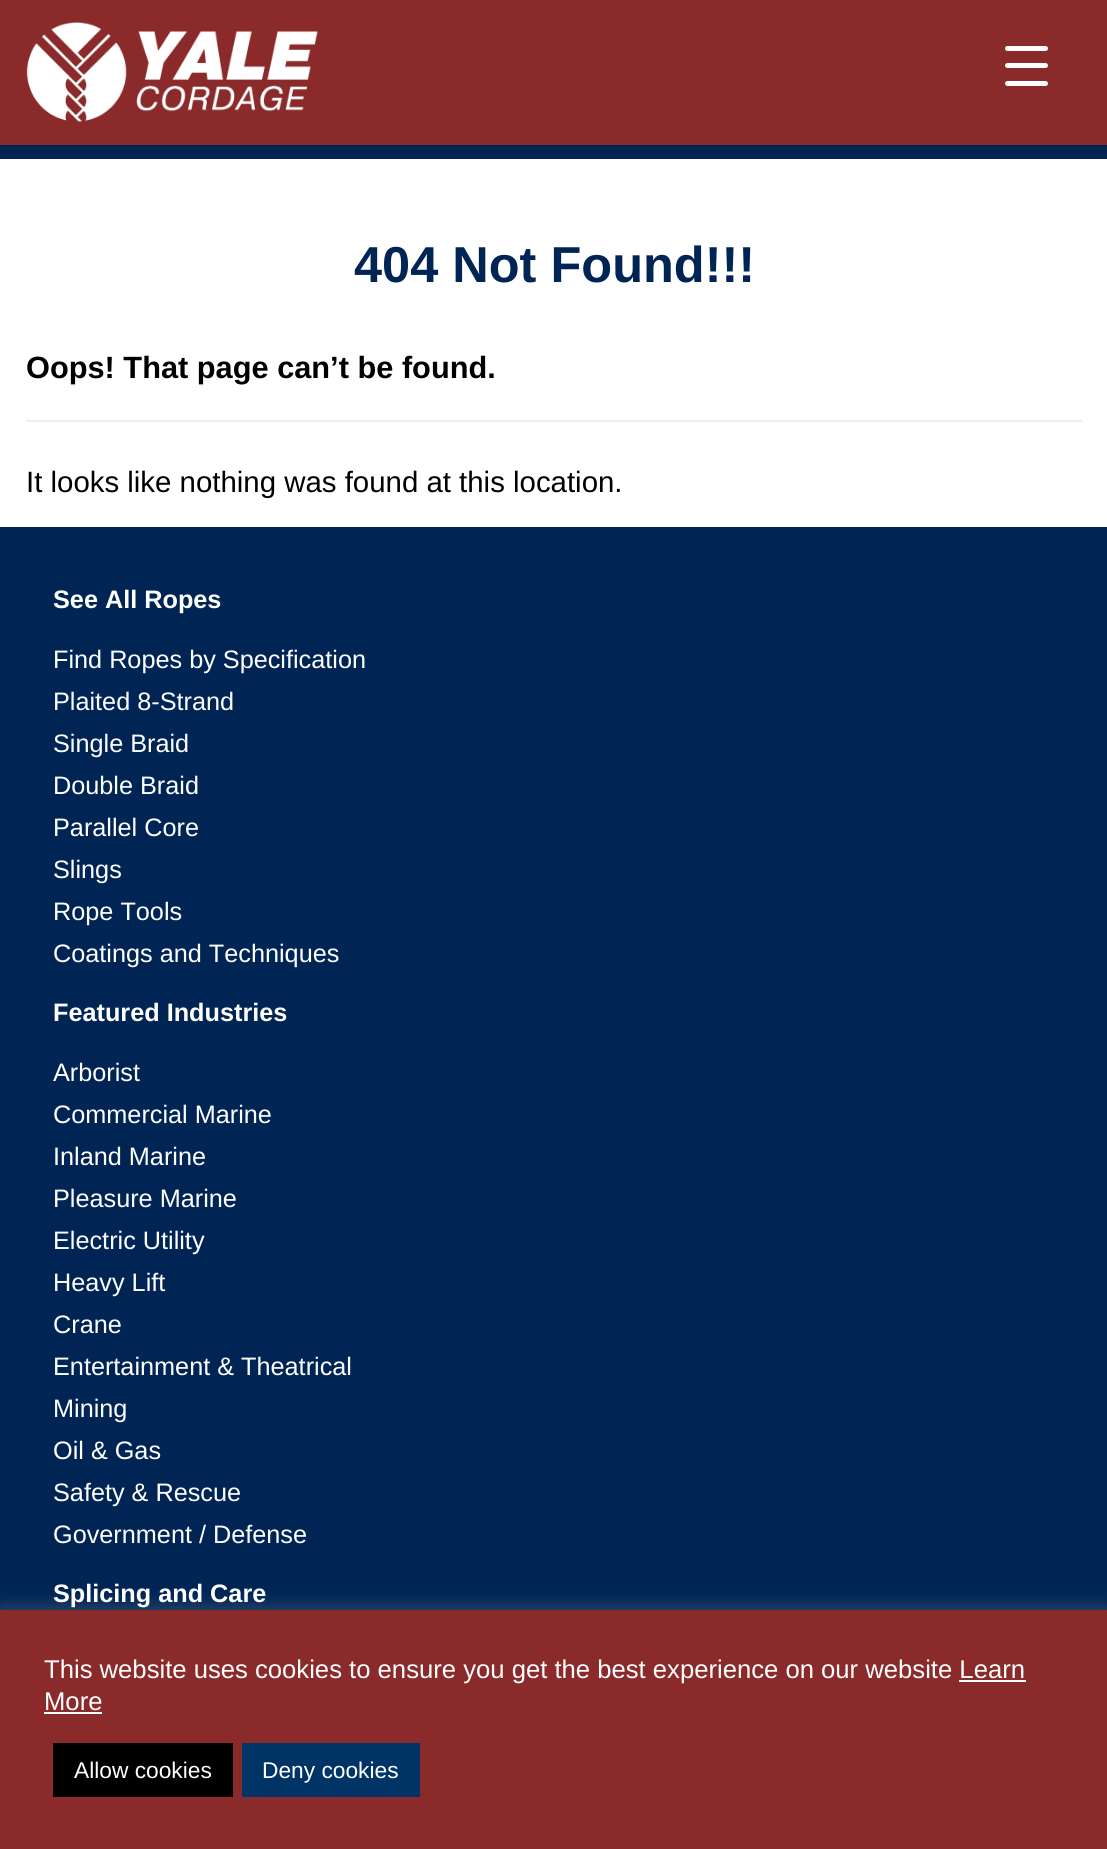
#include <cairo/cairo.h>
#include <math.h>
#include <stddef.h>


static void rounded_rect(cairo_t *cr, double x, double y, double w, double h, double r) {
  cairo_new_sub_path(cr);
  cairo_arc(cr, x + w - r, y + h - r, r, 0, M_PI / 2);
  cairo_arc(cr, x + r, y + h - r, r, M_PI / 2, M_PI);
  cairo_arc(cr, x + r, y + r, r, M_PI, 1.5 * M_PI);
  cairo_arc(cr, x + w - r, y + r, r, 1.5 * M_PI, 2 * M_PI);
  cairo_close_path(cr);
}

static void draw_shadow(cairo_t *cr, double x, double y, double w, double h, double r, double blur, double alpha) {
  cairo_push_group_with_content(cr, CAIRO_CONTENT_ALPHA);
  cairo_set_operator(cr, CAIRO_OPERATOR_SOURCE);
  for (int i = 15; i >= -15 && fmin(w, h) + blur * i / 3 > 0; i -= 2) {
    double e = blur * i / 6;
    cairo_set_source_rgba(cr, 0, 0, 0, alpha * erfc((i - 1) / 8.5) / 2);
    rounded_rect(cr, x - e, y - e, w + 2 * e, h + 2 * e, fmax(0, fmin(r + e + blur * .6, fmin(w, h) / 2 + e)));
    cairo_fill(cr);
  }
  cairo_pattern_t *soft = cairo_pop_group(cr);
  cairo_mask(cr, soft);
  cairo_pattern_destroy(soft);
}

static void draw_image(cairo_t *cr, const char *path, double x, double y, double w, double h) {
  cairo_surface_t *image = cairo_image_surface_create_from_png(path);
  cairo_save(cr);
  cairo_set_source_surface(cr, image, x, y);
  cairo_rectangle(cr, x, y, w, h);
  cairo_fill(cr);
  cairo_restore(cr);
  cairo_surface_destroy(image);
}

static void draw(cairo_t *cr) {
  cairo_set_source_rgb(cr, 1, 1, 1);
  cairo_paint(cr);
  cairo_set_source_rgb(cr, 138 / 255.0, 42 / 255.0, 43 / 255.0);
  cairo_rectangle(cr, 0, 0, 1107, 145);
  cairo_fill(cr);
  cairo_set_source_rgb(cr, 1, 1, 1);
  rounded_rect(cr, 1005, 63, 43, 5, 2.5);
  cairo_fill(cr);
  rounded_rect(cr, 1005, 46, 43, 5, 2.5);
  cairo_fill(cr);
  rounded_rect(cr, 1005, 81, 43, 5, 2.5);
  cairo_fill(cr);
  cairo_set_source_rgb(cr, 0, 37 / 255.0, 84 / 255.0);
  cairo_rectangle(cr, 0, 145, 1107, 14);
  cairo_fill(cr);
  draw_image(cr, "images/1.png", 26, 22, 292, 100);
  cairo_set_source_rgb(cr, 238 / 255.0, 238 / 255.0, 238 / 255.0);
  cairo_rectangle(cr, 26, 420, 1056, 2);
  cairo_fill(cr);
  cairo_set_source_rgb(cr, 0, 37 / 255.0, 84 / 255.0);
  cairo_rectangle(cr, 0, 527, 1107, 1083);
  cairo_fill(cr);
  cairo_set_source_rgb(cr, 172 / 255.0, 171 / 255.0, 171 / 255.0);
  draw_shadow(cr, 0, 1608, 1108, 240, 0, 9, 0.3);
  cairo_set_source_rgb(cr, 138 / 255.0, 42 / 255.0, 43 / 255.0);
  cairo_rectangle(cr, 0, 1610, 1107, 239);
  cairo_fill(cr);
  cairo_set_source_rgb(cr, 1, 1, 1);
  cairo_rectangle(cr, 959, 1680, 67, 2);
  cairo_fill(cr);
  cairo_rectangle(cr, 44, 1712, 58, 2);
  cairo_fill(cr);
  cairo_set_source_rgb(cr, 0, 0, 0);
  cairo_rectangle(cr, 53, 1743, 180, 54);
  cairo_fill(cr);
  cairo_set_source_rgb(cr, 0, 51 / 255.0, 102 / 255.0);
  cairo_rectangle(cr, 242, 1743, 178, 54);
  cairo_fill(cr);
  cairo_select_font_face(cr, "Liberation Sans", CAIRO_FONT_SLANT_NORMAL, CAIRO_FONT_WEIGHT_BOLD);
  cairo_set_font_size(cr, 50.5);
  cairo_set_source_rgb(cr, 0, 37 / 255.0, 84 / 255.0);
  cairo_move_to(cr, 354, 282);
  cairo_show_text(cr, "404 Not Found!!!");
  cairo_set_font_size(cr, 30.75);
  cairo_set_source_rgb(cr, 0, 0, 0);
  cairo_move_to(cr, 26, 378);
  cairo_show_text(cr, "Oops! That page can’t be found.");
  cairo_select_font_face(cr, "Liberation Sans", CAIRO_FONT_SLANT_NORMAL, CAIRO_FONT_WEIGHT_NORMAL);
  cairo_set_font_size(cr, 29.4);
  cairo_move_to(cr, 26, 492);
  cairo_show_text(cr, "It looks like nothing was found at this location.");
  cairo_select_font_face(cr, "Liberation Sans", CAIRO_FONT_SLANT_NORMAL, CAIRO_FONT_WEIGHT_BOLD);
  cairo_set_font_size(cr, 25.25);
  cairo_set_source_rgb(cr, 1, 1, 1);
  cairo_move_to(cr, 53, 608);
  cairo_show_text(cr, "See All Ropes");
  cairo_select_font_face(cr, "Liberation Sans", CAIRO_FONT_SLANT_NORMAL, CAIRO_FONT_WEIGHT_NORMAL);
  cairo_move_to(cr, 53, 668);
  cairo_show_text(cr, "Find Ropes by Specification");
  cairo_move_to(cr, 53, 710);
  cairo_show_text(cr, "Plaited 8-Strand");
  cairo_move_to(cr, 53, 752);
  cairo_show_text(cr, "Single Braid");
  cairo_move_to(cr, 53, 794);
  cairo_show_text(cr, "Double Braid");
  cairo_move_to(cr, 53, 836);
  cairo_show_text(cr, "Parallel Core");
  cairo_move_to(cr, 53, 878);
  cairo_show_text(cr, "Slings");
  cairo_move_to(cr, 53, 920);
  cairo_show_text(cr, "Rope Tools");
  cairo_move_to(cr, 53, 962);
  cairo_show_text(cr, "Coatings and Techniques");
  cairo_select_font_face(cr, "Liberation Sans", CAIRO_FONT_SLANT_NORMAL, CAIRO_FONT_WEIGHT_BOLD);
  cairo_move_to(cr, 53, 1021);
  cairo_show_text(cr, "Featured Industries");
  cairo_select_font_face(cr, "Liberation Sans", CAIRO_FONT_SLANT_NORMAL, CAIRO_FONT_WEIGHT_NORMAL);
  cairo_move_to(cr, 53, 1081);
  cairo_show_text(cr, "Arborist");
  cairo_move_to(cr, 53, 1123);
  cairo_show_text(cr, "Commercial Marine");
  cairo_move_to(cr, 53, 1165);
  cairo_show_text(cr, "Inland Marine");
  cairo_move_to(cr, 53, 1207);
  cairo_show_text(cr, "Pleasure Marine");
  cairo_move_to(cr, 53, 1249);
  cairo_show_text(cr, "Electric Utility");
  cairo_move_to(cr, 53, 1291);
  cairo_show_text(cr, "Heavy Lift");
  cairo_move_to(cr, 53, 1333);
  cairo_show_text(cr, "Crane");
  cairo_move_to(cr, 53, 1375);
  cairo_show_text(cr, "Entertainment & Theatrical");
  cairo_move_to(cr, 53, 1417);
  cairo_show_text(cr, "Mining");
  cairo_move_to(cr, 53, 1459);
  cairo_show_text(cr, "Oil & Gas");
  cairo_move_to(cr, 53, 1501);
  cairo_show_text(cr, "Safety & Rescue");
  cairo_move_to(cr, 53, 1543);
  cairo_show_text(cr, "Government / Defense");
  cairo_select_font_face(cr, "Liberation Sans", CAIRO_FONT_SLANT_NORMAL, CAIRO_FONT_WEIGHT_BOLD);
  cairo_move_to(cr, 53, 1602);
  cairo_show_text(cr, "Splicing and Care");
  cairo_select_font_face(cr, "Liberation Sans", CAIRO_FONT_SLANT_NORMAL, CAIRO_FONT_WEIGHT_NORMAL);
  cairo_set_font_size(cr, 25.65);
  cairo_move_to(cr, 44, 1678);
  cairo_show_text(cr, "This website uses cookies to ensure you get the best experience on our website Learn");
  cairo_move_to(cr, 44, 1710);
  cairo_show_text(cr, "More");
  cairo_set_font_size(cr, 22.75);
  cairo_move_to(cr, 74, 1778);
  cairo_show_text(cr, "Allow cookies");
  cairo_move_to(cr, 262, 1778);
  cairo_show_text(cr, "Deny cookies");
}

int main(void) {
  cairo_surface_t *surface = cairo_image_surface_create(CAIRO_FORMAT_RGB24, 1107, 1849);
  cairo_t *cr = cairo_create(surface);
  cairo_font_options_t *options = cairo_font_options_create();
  cairo_font_options_set_hint_metrics(options, CAIRO_HINT_METRICS_OFF);
  cairo_font_options_set_hint_style(options, CAIRO_HINT_STYLE_NONE);
  cairo_set_font_options(cr, options);
  cairo_set_miter_limit(cr, 4);
  draw(cr);
  cairo_surface_write_to_png(surface, "out.png");
  cairo_font_options_destroy(options);
  cairo_destroy(cr);
  cairo_surface_destroy(surface);
  return 0;
}
